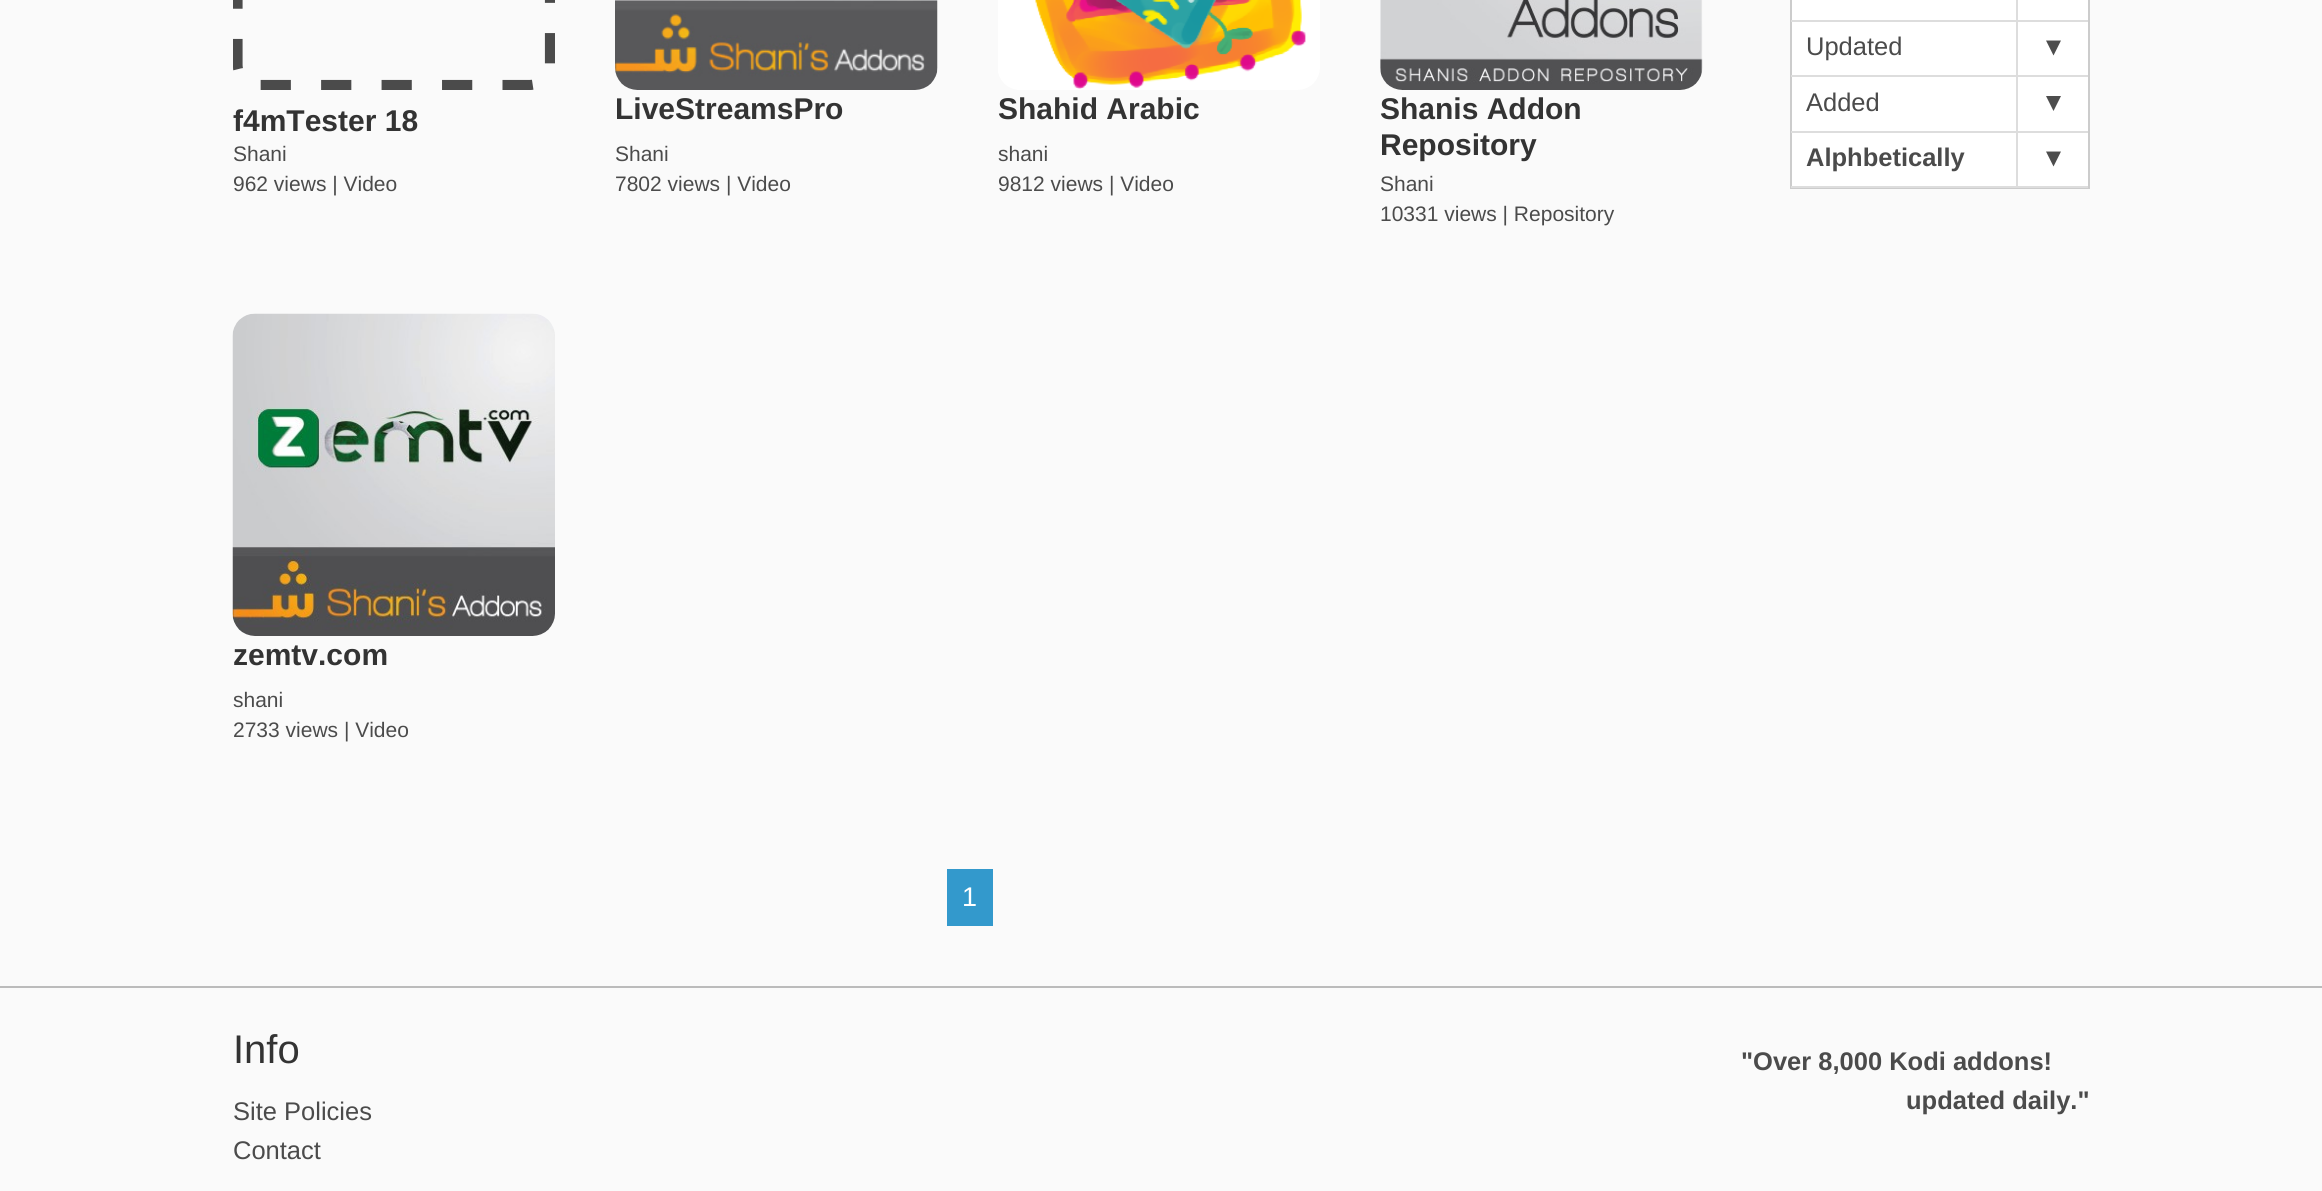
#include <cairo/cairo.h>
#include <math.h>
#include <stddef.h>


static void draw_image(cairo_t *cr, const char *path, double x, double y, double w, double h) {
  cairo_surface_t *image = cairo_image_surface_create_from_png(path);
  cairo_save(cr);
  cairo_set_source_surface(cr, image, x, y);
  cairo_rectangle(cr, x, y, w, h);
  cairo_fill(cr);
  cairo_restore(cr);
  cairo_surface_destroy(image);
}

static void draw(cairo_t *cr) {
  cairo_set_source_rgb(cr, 250 / 255.0, 250 / 255.0, 250 / 255.0);
  cairo_paint(cr);
  draw_image(cr, "images/1.png", 233, 0, 322, 90);
  draw_image(cr, "images/2.png", 615, 0, 323, 90);
  draw_image(cr, "images/3.png", 998, 0, 322, 90);
  draw_image(cr, "images/4.png", 1380, 0, 323, 90);
  draw_image(cr, "images/5.png", 232, 313, 323, 323);
  cairo_set_source_rgb(cr, 51 / 255.0, 153 / 255.0, 204 / 255.0);
  cairo_rectangle(cr, 947, 869, 46, 57);
  cairo_fill(cr);
  cairo_set_source_rgb(cr, 1, 1, 1);
  cairo_rectangle(cr, 1792, 0, 296, 186);
  cairo_fill(cr);
  cairo_rectangle(cr, 1791, -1, 298, 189);
  cairo_set_source_rgb(cr, 204 / 255.0, 204 / 255.0, 204 / 255.0);
  cairo_stroke(cr);
  cairo_set_source_rgb(cr, 221 / 255.0, 221 / 255.0, 221 / 255.0);
  cairo_rectangle(cr, 1791, 20, 297, 2);
  cairo_fill(cr);
  cairo_rectangle(cr, 2016, 0, 2, 20);
  cairo_fill(cr);
  cairo_rectangle(cr, 1791, 75, 297, 2);
  cairo_fill(cr);
  cairo_rectangle(cr, 2016, 21, 2, 54);
  cairo_fill(cr);
  cairo_set_source_rgb(cr, 77 / 255.0, 77 / 255.0, 77 / 255.0);
  cairo_new_path(cr);
  cairo_move_to(cr, 2046, 40.5);
  cairo_line_to(cr, 2061, 40.5);
  cairo_line_to(cr, 2053.5, 55.5);
  cairo_close_path(cr);
  cairo_fill(cr);
  cairo_set_source_rgb(cr, 221 / 255.0, 221 / 255.0, 221 / 255.0);
  cairo_rectangle(cr, 1791, 131, 297, 2);
  cairo_fill(cr);
  cairo_rectangle(cr, 2016, 77, 2, 54);
  cairo_fill(cr);
  cairo_set_source_rgb(cr, 77 / 255.0, 77 / 255.0, 77 / 255.0);
  cairo_new_path(cr);
  cairo_move_to(cr, 2046, 96);
  cairo_line_to(cr, 2061, 96);
  cairo_line_to(cr, 2053.5, 111);
  cairo_close_path(cr);
  cairo_fill(cr);
  cairo_set_source_rgb(cr, 221 / 255.0, 221 / 255.0, 221 / 255.0);
  cairo_rectangle(cr, 1791, 186, 297, 2);
  cairo_fill(cr);
  cairo_rectangle(cr, 2016, 132, 2, 54);
  cairo_fill(cr);
  cairo_set_source_rgb(cr, 77 / 255.0, 77 / 255.0, 77 / 255.0);
  cairo_new_path(cr);
  cairo_move_to(cr, 2046, 151.5);
  cairo_line_to(cr, 2061, 151.5);
  cairo_line_to(cr, 2053.5, 166.5);
  cairo_close_path(cr);
  cairo_fill(cr);
  cairo_set_source_rgb(cr, 187 / 255.0, 187 / 255.0, 187 / 255.0);
  cairo_rectangle(cr, 0, 986, 2322, 2);
  cairo_fill(cr);
  cairo_select_font_face(cr, "Liberation Sans", CAIRO_FONT_SLANT_NORMAL, CAIRO_FONT_WEIGHT_BOLD);
  cairo_set_font_size(cr, 30);
  cairo_set_source_rgb(cr, 51 / 255.0, 51 / 255.0, 51 / 255.0);
  cairo_move_to(cr, 233, 131);
  cairo_show_text(cr, "f4mTester 18");
  cairo_select_font_face(cr, "Liberation Sans", CAIRO_FONT_SLANT_NORMAL, CAIRO_FONT_WEIGHT_NORMAL);
  cairo_set_font_size(cr, 21);
  cairo_set_source_rgb(cr, 75 / 255.0, 75 / 255.0, 75 / 255.0);
  cairo_move_to(cr, 233, 161);
  cairo_show_text(cr, "Shani");
  cairo_move_to(cr, 233, 191);
  cairo_show_text(cr, "962 views | Video");
  cairo_select_font_face(cr, "Liberation Sans", CAIRO_FONT_SLANT_NORMAL, CAIRO_FONT_WEIGHT_BOLD);
  cairo_set_font_size(cr, 30);
  cairo_set_source_rgb(cr, 51 / 255.0, 51 / 255.0, 51 / 255.0);
  cairo_move_to(cr, 615, 119);
  cairo_show_text(cr, "LiveStreamsPro");
  cairo_select_font_face(cr, "Liberation Sans", CAIRO_FONT_SLANT_NORMAL, CAIRO_FONT_WEIGHT_NORMAL);
  cairo_set_font_size(cr, 21);
  cairo_set_source_rgb(cr, 75 / 255.0, 75 / 255.0, 75 / 255.0);
  cairo_move_to(cr, 615, 161);
  cairo_show_text(cr, "Shani");
  cairo_move_to(cr, 615, 191);
  cairo_show_text(cr, "7802 views | Video");
  cairo_select_font_face(cr, "Liberation Sans", CAIRO_FONT_SLANT_NORMAL, CAIRO_FONT_WEIGHT_BOLD);
  cairo_set_font_size(cr, 30);
  cairo_set_source_rgb(cr, 51 / 255.0, 51 / 255.0, 51 / 255.0);
  cairo_move_to(cr, 998, 119);
  cairo_show_text(cr, "Shahid Arabic");
  cairo_select_font_face(cr, "Liberation Sans", CAIRO_FONT_SLANT_NORMAL, CAIRO_FONT_WEIGHT_NORMAL);
  cairo_set_font_size(cr, 21);
  cairo_set_source_rgb(cr, 75 / 255.0, 75 / 255.0, 75 / 255.0);
  cairo_move_to(cr, 998, 161);
  cairo_show_text(cr, "shani");
  cairo_move_to(cr, 998, 191);
  cairo_show_text(cr, "9812 views | Video");
  cairo_select_font_face(cr, "Liberation Sans", CAIRO_FONT_SLANT_NORMAL, CAIRO_FONT_WEIGHT_BOLD);
  cairo_set_font_size(cr, 30);
  cairo_set_source_rgb(cr, 51 / 255.0, 51 / 255.0, 51 / 255.0);
  cairo_move_to(cr, 1380, 119);
  cairo_show_text(cr, "Shanis Addon");
  cairo_move_to(cr, 1380, 155);
  cairo_show_text(cr, "Repository");
  cairo_select_font_face(cr, "Liberation Sans", CAIRO_FONT_SLANT_NORMAL, CAIRO_FONT_WEIGHT_NORMAL);
  cairo_set_font_size(cr, 21);
  cairo_set_source_rgb(cr, 75 / 255.0, 75 / 255.0, 75 / 255.0);
  cairo_move_to(cr, 1380, 191);
  cairo_show_text(cr, "Shani");
  cairo_move_to(cr, 1380, 221);
  cairo_show_text(cr, "10331 views | Repository");
  cairo_select_font_face(cr, "Liberation Sans", CAIRO_FONT_SLANT_NORMAL, CAIRO_FONT_WEIGHT_BOLD);
  cairo_set_font_size(cr, 30);
  cairo_set_source_rgb(cr, 51 / 255.0, 51 / 255.0, 51 / 255.0);
  cairo_move_to(cr, 233, 665);
  cairo_show_text(cr, "zemtv.com");
  cairo_select_font_face(cr, "Liberation Sans", CAIRO_FONT_SLANT_NORMAL, CAIRO_FONT_WEIGHT_NORMAL);
  cairo_set_font_size(cr, 21);
  cairo_set_source_rgb(cr, 75 / 255.0, 75 / 255.0, 75 / 255.0);
  cairo_move_to(cr, 233, 707);
  cairo_show_text(cr, "shani");
  cairo_move_to(cr, 233, 737);
  cairo_show_text(cr, "2733 views | Video");
  cairo_set_font_size(cr, 27);
  cairo_set_source_rgb(cr, 1, 1, 1);
  cairo_move_to(cr, 962, 906);
  cairo_show_text(cr, "1");
  cairo_set_font_size(cr, 25.5);
  cairo_set_source_rgb(cr, 75 / 255.0, 75 / 255.0, 75 / 255.0);
  cairo_move_to(cr, 1806, 55);
  cairo_show_text(cr, "Updated");
  cairo_move_to(cr, 1806, 111);
  cairo_show_text(cr, "Added");
  cairo_select_font_face(cr, "Liberation Sans", CAIRO_FONT_SLANT_NORMAL, CAIRO_FONT_WEIGHT_BOLD);
  cairo_move_to(cr, 1806, 166);
  cairo_show_text(cr, "Alphbetically");
  cairo_select_font_face(cr, "Liberation Sans", CAIRO_FONT_SLANT_NORMAL, CAIRO_FONT_WEIGHT_NORMAL);
  cairo_set_font_size(cr, 40);
  cairo_set_source_rgb(cr, 51 / 255.0, 51 / 255.0, 51 / 255.0);
  cairo_move_to(cr, 233, 1063);
  cairo_show_text(cr, "Info");
  cairo_set_font_size(cr, 25.5);
  cairo_set_source_rgb(cr, 75 / 255.0, 75 / 255.0, 75 / 255.0);
  cairo_move_to(cr, 233, 1120);
  cairo_show_text(cr, "Site Policies");
  cairo_move_to(cr, 233, 1159);
  cairo_show_text(cr, "Contact");
  cairo_select_font_face(cr, "Liberation Sans", CAIRO_FONT_SLANT_NORMAL, CAIRO_FONT_WEIGHT_BOLD);
  cairo_move_to(cr, 1741, 1070);
  cairo_show_text(cr, "\"Over 8,000 Kodi addons!");
  cairo_move_to(cr, 1906, 1109);
  cairo_show_text(cr, "updated daily.\"");
}

int main(void) {
  cairo_surface_t *surface = cairo_image_surface_create(CAIRO_FORMAT_RGB24, 2322, 1191);
  cairo_t *cr = cairo_create(surface);
  cairo_font_options_t *options = cairo_font_options_create();
  cairo_font_options_set_hint_metrics(options, CAIRO_HINT_METRICS_OFF);
  cairo_font_options_set_hint_style(options, CAIRO_HINT_STYLE_NONE);
  cairo_set_font_options(cr, options);
  cairo_set_miter_limit(cr, 4);
  draw(cr);
  cairo_surface_write_to_png(surface, "out.png");
  cairo_font_options_destroy(options);
  cairo_destroy(cr);
  cairo_surface_destroy(surface);
  return 0;
}
